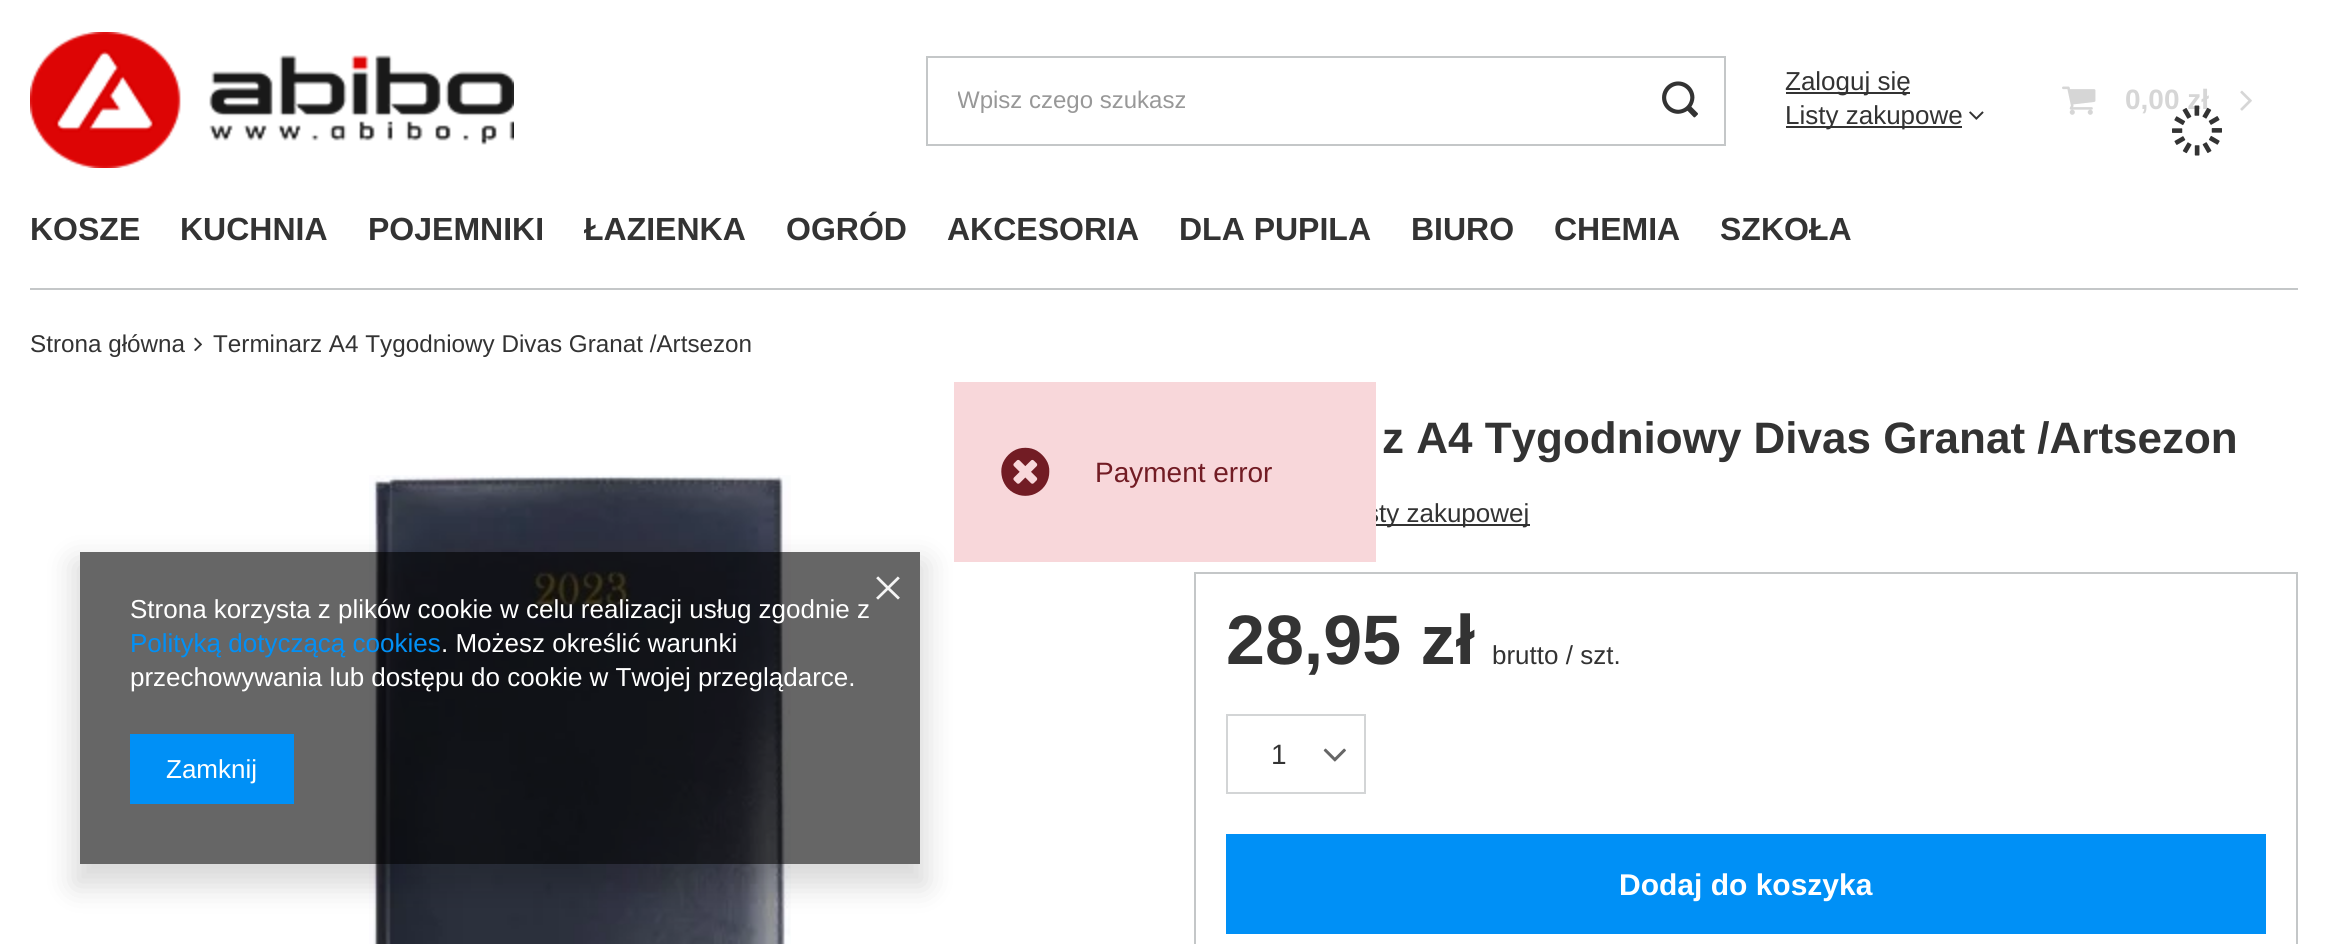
#include <cairo/cairo.h>
#include <math.h>
#include <stddef.h>


static void rounded_rect(cairo_t *cr, double x, double y, double w, double h, double r) {
  cairo_new_sub_path(cr);
  cairo_arc(cr, x + w - r, y + h - r, r, 0, M_PI / 2);
  cairo_arc(cr, x + r, y + h - r, r, M_PI / 2, M_PI);
  cairo_arc(cr, x + r, y + r, r, M_PI, 1.5 * M_PI);
  cairo_arc(cr, x + w - r, y + r, r, 1.5 * M_PI, 2 * M_PI);
  cairo_close_path(cr);
}

static void draw_shadow(cairo_t *cr, double x, double y, double w, double h, double r, double blur, double alpha) {
  cairo_push_group_with_content(cr, CAIRO_CONTENT_ALPHA);
  cairo_set_operator(cr, CAIRO_OPERATOR_SOURCE);
  for (int i = 15; i >= -15 && fmin(w, h) + blur * i / 3 > 0; i -= 2) {
    double e = blur * i / 6;
    cairo_set_source_rgba(cr, 0, 0, 0, alpha * erfc((i - 1) / 8.5) / 2);
    rounded_rect(cr, x - e, y - e, w + 2 * e, h + 2 * e, fmax(0, fmin(r + e + blur * .6, fmin(w, h) / 2 + e)));
    cairo_fill(cr);
  }
  cairo_pattern_t *soft = cairo_pop_group(cr);
  cairo_mask(cr, soft);
  cairo_pattern_destroy(soft);
}

static void draw_image(cairo_t *cr, const char *path, double x, double y, double w, double h) {
  cairo_surface_t *image = cairo_image_surface_create_from_png(path);
  cairo_save(cr);
  cairo_set_source_surface(cr, image, x, y);
  cairo_rectangle(cr, x, y, w, h);
  cairo_fill(cr);
  cairo_restore(cr);
  cairo_surface_destroy(image);
}

static void draw(cairo_t *cr) {
  cairo_set_source_rgb(cr, 1, 1, 1);
  cairo_paint(cr);
  draw_image(cr, "images/1.png", 30, 32, 484, 136);
  cairo_rectangle(cr, 927, 57, 798, 88);
  cairo_set_source_rgb(cr, 196 / 255.0, 199 / 255.0, 200 / 255.0);
  cairo_stroke(cr);
  draw_image(cr, "images/2.png", 1662, 81, 36, 37);
  cairo_set_source_rgb(cr, 51 / 255.0, 51 / 255.0, 51 / 255.0);
  cairo_rectangle(cr, 1786, 92, 124, 2);
  cairo_fill(cr);
  cairo_rectangle(cr, 1786, 126, 176, 2);
  cairo_fill(cr);
  draw_image(cr, "images/3.png", 1969, 111, 15, 9);
  draw_image(cr, "images/4.png", 2062, 86, 34, 29);
  draw_image(cr, "images/5.png", 2240, 90, 12, 21);
  cairo_set_source_rgb(cr, 196 / 255.0, 199 / 255.0, 200 / 255.0);
  cairo_rectangle(cr, 30, 288, 2268, 2);
  cairo_fill(cr);
  draw_image(cr, "images/7.png", 194, 337, 8, 15);
  draw_image(cr, "images/8.png", 369, 475, 422, 469);
  cairo_set_source_rgb(cr, 51 / 255.0, 51 / 255.0, 51 / 255.0);
  cairo_rectangle(cr, 1376, 524, 154, 2);
  cairo_fill(cr);
  cairo_rectangle(cr, 1195, 573, 1102, 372);
  cairo_set_source_rgb(cr, 196 / 255.0, 199 / 255.0, 200 / 255.0);
  cairo_stroke(cr);
  cairo_rectangle(cr, 1227, 715, 138, 78);
  cairo_set_source_rgb(cr, 211 / 255.0, 213 / 255.0, 214 / 255.0);
  cairo_stroke(cr);
  draw_image(cr, "images/9.png", 1323, 748, 23, 14);
  cairo_set_source_rgb(cr, 0, 144 / 255.0, 246 / 255.0);
  cairo_rectangle(cr, 1226, 834, 1040, 100);
  cairo_fill(cr);
  cairo_save(cr);
  cairo_set_fill_rule(cr, CAIRO_FILL_RULE_EVEN_ODD);
  cairo_new_path(cr);
  cairo_move_to(cr, 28, 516);
  cairo_line_to(cr, 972, 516);
  cairo_line_to(cr, 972, 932);
  cairo_line_to(cr, 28, 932);
  cairo_close_path(cr);
  cairo_move_to(cr, 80, 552);
  cairo_line_to(cr, 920, 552);
  cairo_line_to(cr, 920, 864);
  cairo_line_to(cr, 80, 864);
  cairo_close_path(cr);
  cairo_clip(cr);
  cairo_set_source_rgb(cr, 0, 0, 0);
  draw_shadow(cr, 74, 562, 852, 324, 0, 15, 0.15);
  cairo_restore(cr);
  cairo_set_source_rgba(cr, 0, 0, 0, 0.6);
  cairo_rectangle(cr, 80, 552, 840, 312);
  cairo_fill(cr);
  draw_image(cr, "images/11.png", 876, 576, 24, 24);
  cairo_set_source_rgb(cr, 0, 144 / 255.0, 246 / 255.0);
  cairo_rectangle(cr, 130, 734, 164, 70);
  cairo_fill(cr);
  cairo_save(cr);
  cairo_rectangle(cr, 958, 86, 616, 28);
  cairo_clip(cr);
  cairo_select_font_face(cr, "Liberation Sans", CAIRO_FONT_SLANT_NORMAL, CAIRO_FONT_WEIGHT_NORMAL);
  cairo_set_font_size(cr, 24);
  cairo_set_source_rgb(cr, 152 / 255.0, 152 / 255.0, 152 / 255.0);
  cairo_move_to(cr, 957, 108);
  cairo_show_text(cr, "Wpisz czego szukasz");
  cairo_restore(cr);
  cairo_select_font_face(cr, "Liberation Sans", CAIRO_FONT_SLANT_NORMAL, CAIRO_FONT_WEIGHT_NORMAL);
  cairo_set_font_size(cr, 26);
  cairo_set_source_rgb(cr, 51 / 255.0, 51 / 255.0, 51 / 255.0);
  cairo_move_to(cr, 1785, 90);
  cairo_show_text(cr, "Zaloguj się");
  cairo_move_to(cr, 1785, 124);
  cairo_show_text(cr, "Listy zakupowe");
  cairo_select_font_face(cr, "Liberation Sans", CAIRO_FONT_SLANT_NORMAL, CAIRO_FONT_WEIGHT_BOLD);
  cairo_set_font_size(cr, 28);
  cairo_set_source_rgb(cr, 214 / 255.0, 214 / 255.0, 214 / 255.0);
  cairo_move_to(cr, 2125, 109);
  cairo_show_text(cr, "0,00 zł");
  draw_image(cr, "images/6.png", 2172, 105, 50, 51);
  cairo_set_font_size(cr, 32);
  cairo_set_source_rgb(cr, 51 / 255.0, 51 / 255.0, 51 / 255.0);
  cairo_move_to(cr, 30, 240);
  cairo_show_text(cr, "KOSZE");
  cairo_move_to(cr, 180, 240);
  cairo_show_text(cr, "KUCHNIA");
  cairo_move_to(cr, 368, 240);
  cairo_show_text(cr, "POJEMNIKI");
  cairo_move_to(cr, 584, 240);
  cairo_show_text(cr, "ŁAZIENKA");
  cairo_move_to(cr, 786, 240);
  cairo_show_text(cr, "OGRÓD");
  cairo_move_to(cr, 947, 240);
  cairo_show_text(cr, "AKCESORIA");
  cairo_move_to(cr, 1179, 240);
  cairo_show_text(cr, "DLA PUPILA");
  cairo_move_to(cr, 1411, 240);
  cairo_show_text(cr, "BIURO");
  cairo_move_to(cr, 1554, 240);
  cairo_show_text(cr, "CHEMIA");
  cairo_move_to(cr, 1720, 240);
  cairo_show_text(cr, "SZKOŁA");
  cairo_select_font_face(cr, "Liberation Sans", CAIRO_FONT_SLANT_NORMAL, CAIRO_FONT_WEIGHT_NORMAL);
  cairo_set_font_size(cr, 24.25);
  cairo_move_to(cr, 30, 352);
  cairo_show_text(cr, "Strona główna");
  cairo_move_to(cr, 213, 352);
  cairo_show_text(cr, "Terminarz A4 Tygodniowy Divas Granat /Artsezon");
  cairo_select_font_face(cr, "Liberation Sans", CAIRO_FONT_SLANT_NORMAL, CAIRO_FONT_WEIGHT_BOLD);
  cairo_set_font_size(cr, 44);
  cairo_move_to(cr, 1382, 453);
  cairo_show_text(cr, "z A4 Tygodniowy Divas Granat /Artsezon");
  cairo_select_font_face(cr, "Liberation Sans", CAIRO_FONT_SLANT_NORMAL, CAIRO_FONT_WEIGHT_NORMAL);
  cairo_set_font_size(cr, 26);
  cairo_move_to(cr, 1366, 522);
  cairo_show_text(cr, "sty zakupowej");
  cairo_select_font_face(cr, "Liberation Sans", CAIRO_FONT_SLANT_NORMAL, CAIRO_FONT_WEIGHT_BOLD);
  cairo_set_font_size(cr, 70);
  cairo_move_to(cr, 1226, 664);
  cairo_show_text(cr, "28,95 zł");
  cairo_select_font_face(cr, "Liberation Sans", CAIRO_FONT_SLANT_NORMAL, CAIRO_FONT_WEIGHT_NORMAL);
  cairo_set_font_size(cr, 26);
  cairo_move_to(cr, 1492, 664);
  cairo_show_text(cr, "brutto / szt.");
  cairo_set_font_size(cr, 28);
  cairo_move_to(cr, 1271, 764);
  cairo_show_text(cr, "1");
  cairo_select_font_face(cr, "Liberation Sans", CAIRO_FONT_SLANT_NORMAL, CAIRO_FONT_WEIGHT_BOLD);
  cairo_set_font_size(cr, 30);
  cairo_set_source_rgb(cr, 1, 1, 1);
  cairo_move_to(cr, 1619, 895);
  cairo_show_text(cr, "Dodaj do koszyka");
  cairo_set_source_rgb(cr, 248 / 255.0, 215 / 255.0, 218 / 255.0);
  cairo_rectangle(cr, 954, 382, 422, 180);
  cairo_fill(cr);
  draw_image(cr, "images/10.png", 1001, 447, 49, 49);
  cairo_select_font_face(cr, "Liberation Sans", CAIRO_FONT_SLANT_NORMAL, CAIRO_FONT_WEIGHT_NORMAL);
  cairo_set_font_size(cr, 28);
  cairo_set_source_rgb(cr, 114 / 255.0, 28 / 255.0, 36 / 255.0);
  cairo_move_to(cr, 1095, 482);
  cairo_show_text(cr, "Payment error");
  cairo_set_font_size(cr, 26);
  cairo_set_source_rgb(cr, 1, 1, 1);
  cairo_move_to(cr, 130, 618);
  cairo_show_text(cr, "Strona korzysta z plików cookie w celu realizacji usług zgodnie z");
  cairo_set_source_rgb(cr, 1 / 255.0, 144 / 255.0, 246 / 255.0);
  cairo_move_to(cr, 130, 652);
  cairo_show_text(cr, "Polityką dotyczącą cookies");
  cairo_set_source_rgb(cr, 1, 1, 1);
  cairo_move_to(cr, 441, 652);
  cairo_show_text(cr, ". Możesz określić warunki");
  cairo_move_to(cr, 130, 686);
  cairo_show_text(cr, "przechowywania lub dostępu do cookie w Twojej przeglądarce.");
  cairo_move_to(cr, 166, 778);
  cairo_show_text(cr, "Zamknij");
}

int main(void) {
  cairo_surface_t *surface = cairo_image_surface_create(CAIRO_FORMAT_RGB24, 2327, 944);
  cairo_t *cr = cairo_create(surface);
  cairo_font_options_t *options = cairo_font_options_create();
  cairo_font_options_set_hint_metrics(options, CAIRO_HINT_METRICS_OFF);
  cairo_font_options_set_hint_style(options, CAIRO_HINT_STYLE_NONE);
  cairo_set_font_options(cr, options);
  cairo_set_miter_limit(cr, 4);
  draw(cr);
  cairo_surface_write_to_png(surface, "out.png");
  cairo_font_options_destroy(options);
  cairo_destroy(cr);
  cairo_surface_destroy(surface);
  return 0;
}
